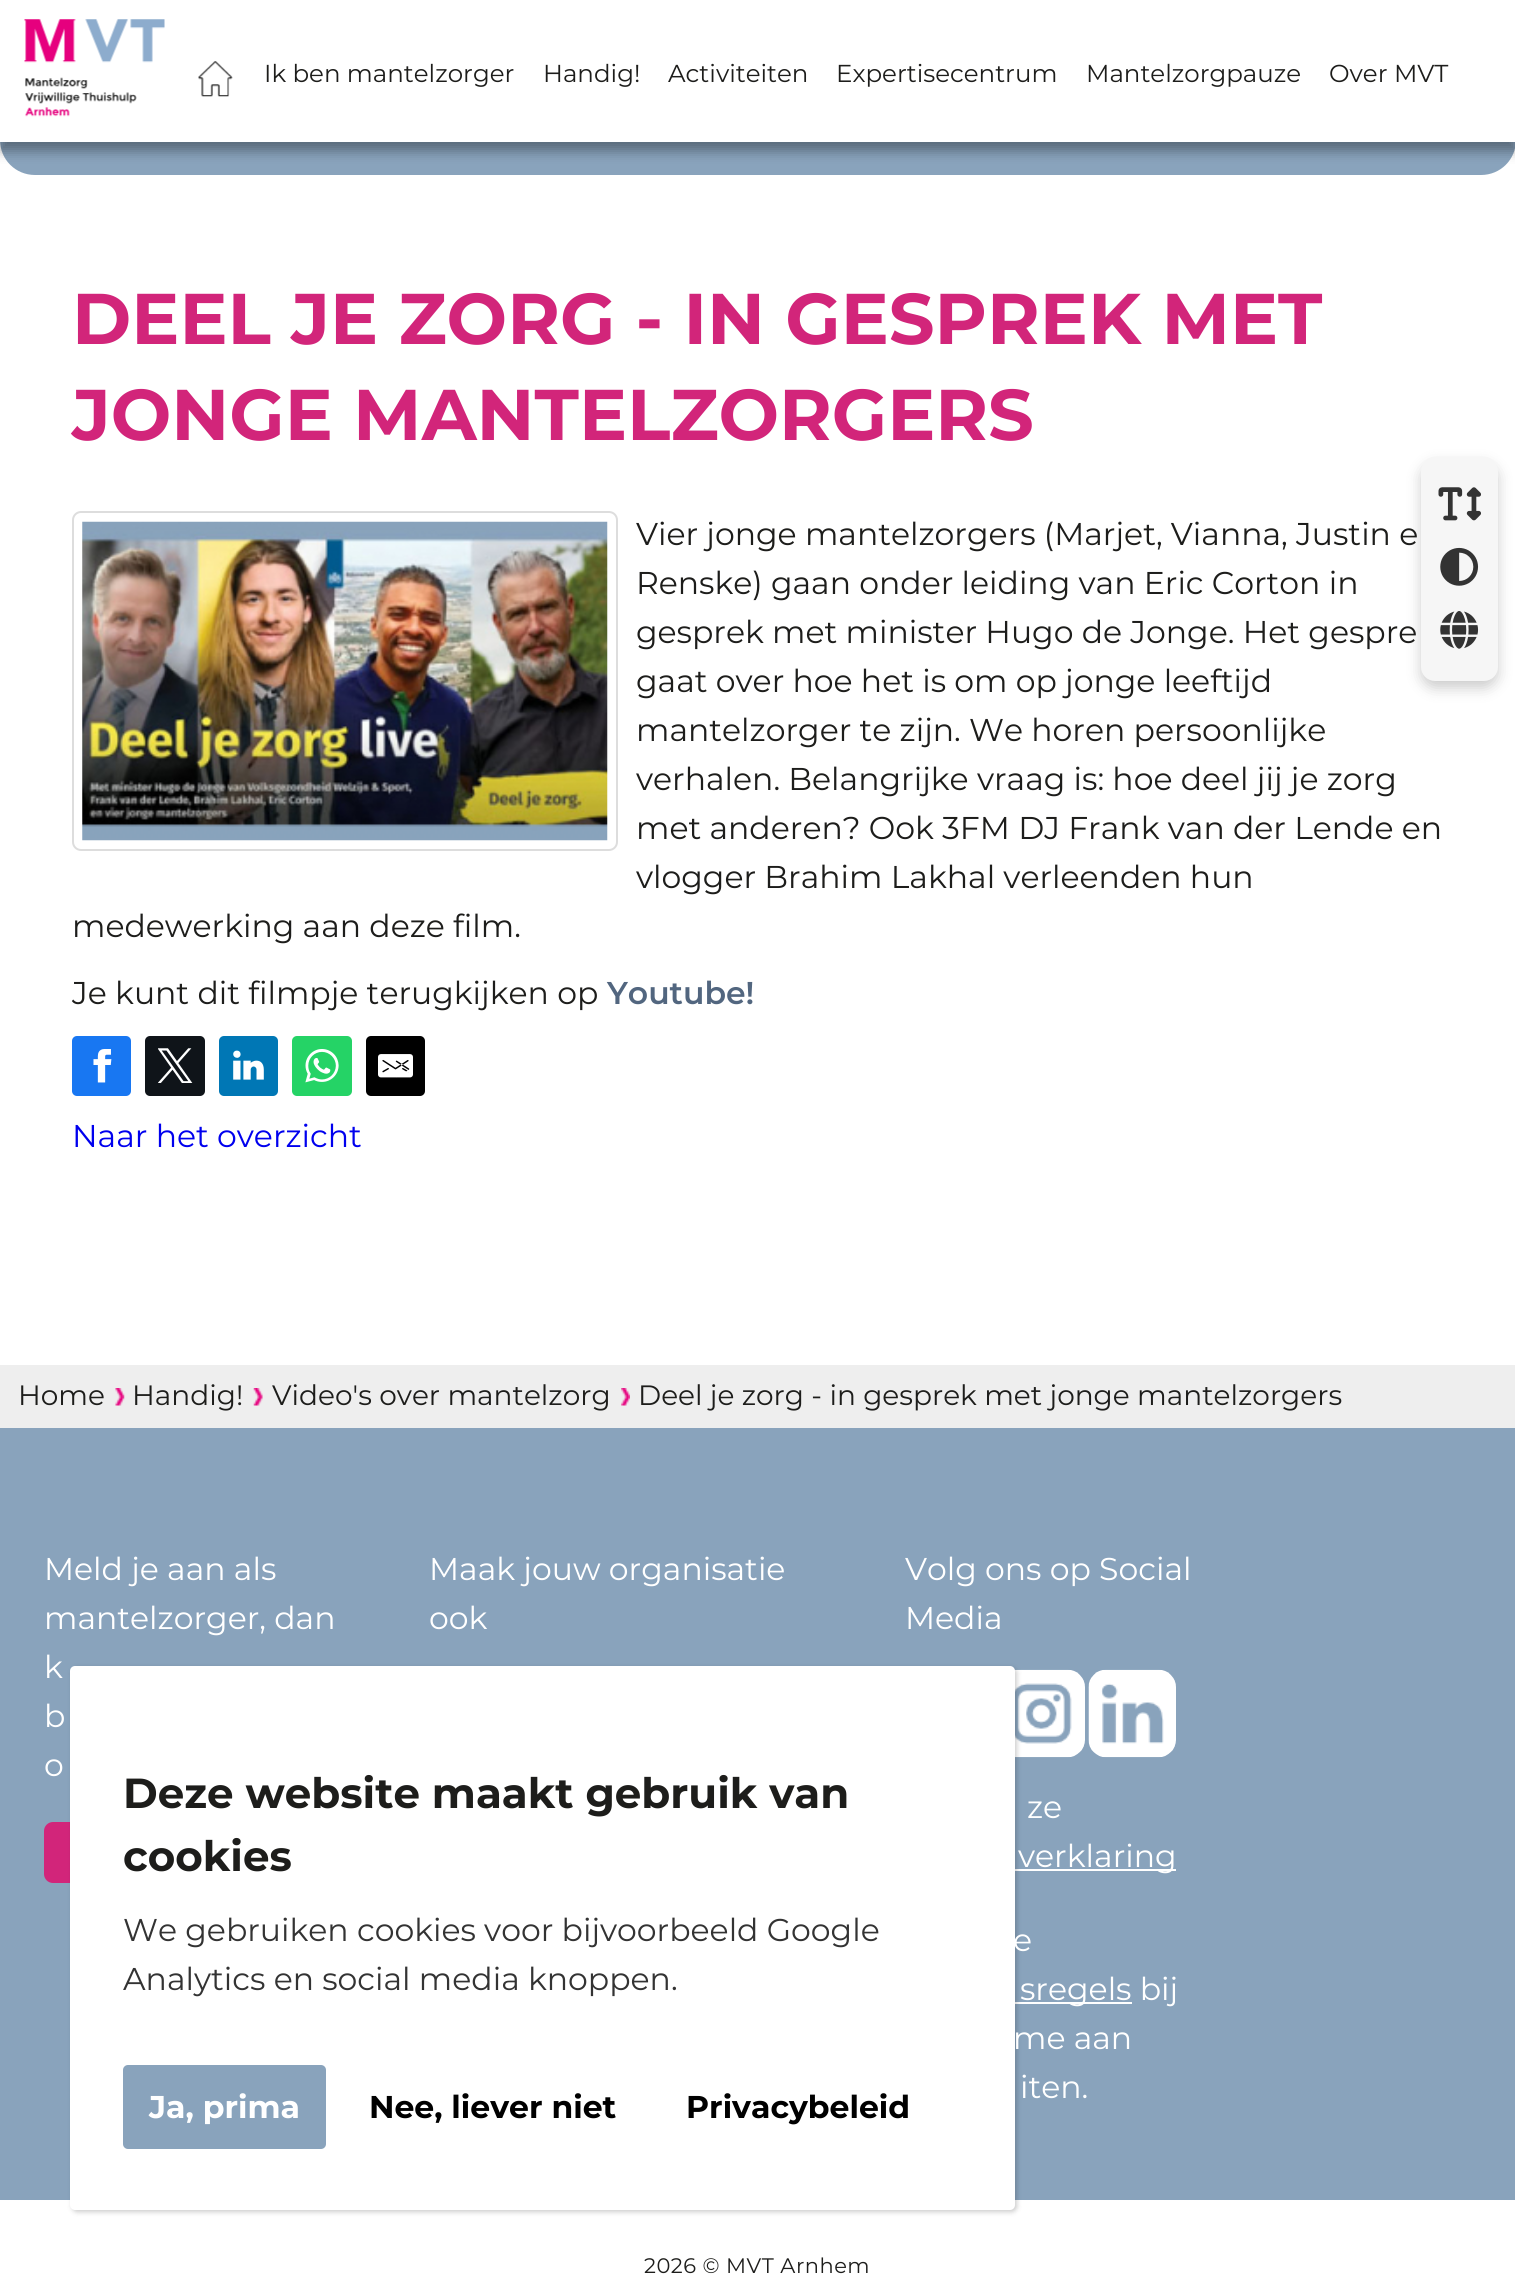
#include <cairo/cairo.h>
#include <math.h>
#include <stddef.h>


static void draw_spaced(cairo_t *cr, double x, double y, const char *s, double letter, double word) {
  cairo_move_to(cr, x, y);
  while (*s) {
    char ch[5] = {0};
    int n = 0;
    do ch[n++] = *s++; while ((*s & 0xC0) == 0x80);
    cairo_show_text(cr, ch);
    cairo_rel_move_to(cr, letter + word * (*ch == ' '), 0);
  }
}

static void rounded_rect(cairo_t *cr, double x, double y, double w, double h, double r) {
  cairo_new_sub_path(cr);
  cairo_arc(cr, x + w - r, y + h - r, r, 0, M_PI / 2);
  cairo_arc(cr, x + r, y + h - r, r, M_PI / 2, M_PI);
  cairo_arc(cr, x + r, y + r, r, M_PI, 1.5 * M_PI);
  cairo_arc(cr, x + w - r, y + r, r, 1.5 * M_PI, 2 * M_PI);
  cairo_close_path(cr);
}

static void draw_shadow(cairo_t *cr, double x, double y, double w, double h, double r, double blur, double alpha) {
  cairo_push_group_with_content(cr, CAIRO_CONTENT_ALPHA);
  cairo_set_operator(cr, CAIRO_OPERATOR_SOURCE);
  for (int i = 15; i >= -15 && fmin(w, h) + blur * i / 3 > 0; i -= 2) {
    double e = blur * i / 6;
    cairo_set_source_rgba(cr, 0, 0, 0, alpha * erfc((i - 1) / 8.5) / 2);
    rounded_rect(cr, x - e, y - e, w + 2 * e, h + 2 * e, fmax(0, fmin(r + e + blur * .6, fmin(w, h) / 2 + e)));
    cairo_fill(cr);
  }
  cairo_pattern_t *soft = cairo_pop_group(cr);
  cairo_mask(cr, soft);
  cairo_pattern_destroy(soft);
}

static void draw_image(cairo_t *cr, const char *path, double x, double y, double w, double h) {
  cairo_surface_t *image = cairo_image_surface_create_from_png(path);
  cairo_save(cr);
  cairo_set_source_surface(cr, image, x, y);
  cairo_rectangle(cr, x, y, w, h);
  cairo_fill(cr);
  cairo_restore(cr);
  cairo_surface_destroy(image);
}

static void draw(cairo_t *cr) {
  cairo_set_source_rgb(cr, 1, 1, 1);
  cairo_paint(cr);
  cairo_set_source_rgb(cr, 137 / 255.0, 163 / 255.0, 188 / 255.0);
  cairo_new_path(cr);
  cairo_move_to(cr, 0, -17);
  cairo_line_to(cr, 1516, -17);
  cairo_line_to(cr, 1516, 140);
  cairo_curve_to(cr, 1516, 159.5, 1500.5, 175, 1481, 175);
  cairo_line_to(cr, 35, 175);
  cairo_curve_to(cr, 15.5, 175, 0, 159.5, 0, 140);
  cairo_close_path(cr);
  cairo_fill(cr);
  cairo_set_source_rgb(cr, 0, 0, 0);
  draw_shadow(cr, 0, 9, 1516, 142, 0, 6, 0.35);
  cairo_set_source_rgb(cr, 1, 1, 1);
  cairo_rectangle(cr, 0, 0, 1515, 142);
  cairo_fill(cr);
  draw_image(cr, "images/1.png", 24, 19, 141, 98);
  draw_image(cr, "images/2.png", 198, 61, 35, 36);
  rounded_rect(cr, 73, 512, 544, 338, 8);
  cairo_set_source_rgb(cr, 221 / 255.0, 221 / 255.0, 221 / 255.0);
  cairo_stroke(cr);
  draw_image(cr, "images/3.png", 82, 521, 526, 320);
  cairo_set_source_rgb(cr, 24 / 255.0, 119 / 255.0, 242 / 255.0);
  rounded_rect(cr, 72, 1036, 59, 60, 5);
  cairo_fill(cr);
  draw_image(cr, "images/4.png", 93, 1049, 19, 34);
  cairo_set_source_rgb(cr, 15 / 255.0, 20 / 255.0, 25 / 255.0);
  rounded_rect(cr, 145, 1036, 60, 60, 5);
  cairo_fill(cr);
  draw_image(cr, "images/5.png", 158, 1048, 35, 35);
  cairo_set_source_rgb(cr, 0, 119 / 255.0, 181 / 255.0);
  rounded_rect(cr, 219, 1036, 59, 60, 5);
  cairo_fill(cr);
  draw_image(cr, "images/6.png", 233, 1050, 31, 30);
  cairo_set_source_rgb(cr, 37 / 255.0, 211 / 255.0, 102 / 255.0);
  rounded_rect(cr, 292, 1036, 60, 60, 5);
  cairo_fill(cr);
  draw_image(cr, "images/7.png", 305, 1049, 34, 34);
  cairo_set_source_rgb(cr, 0, 0, 0);
  rounded_rect(cr, 366, 1036, 59, 60, 5);
  cairo_fill(cr);
  draw_image(cr, "images/8.png", 378, 1054, 35, 24);
  cairo_set_source_rgb(cr, 238 / 255.0, 238 / 255.0, 238 / 255.0);
  cairo_rectangle(cr, 0, 1365, 1515, 63);
  cairo_fill(cr);
  draw_image(cr, "images/9.png", 115, 1388, 10, 18);
  draw_image(cr, "images/10.png", 253, 1388, 10, 18);
  draw_image(cr, "images/11.png", 621, 1388, 9, 18);
  cairo_set_source_rgb(cr, 137 / 255.0, 163 / 255.0, 188 / 255.0);
  cairo_rectangle(cr, 0, 1428, 1515, 772);
  cairo_fill(cr);
  cairo_set_source_rgb(cr, 210 / 255.0, 37 / 255.0, 122 / 255.0);
  rounded_rect(cr, 44, 1822, 161, 61, 9);
  cairo_fill(cr);
  draw_image(cr, "images/12.png", 1014, 1669, 71, 89);
  draw_image(cr, "images/13.png", 1088, 1669, 88, 89);
  cairo_set_source_rgb(cr, 1, 1, 1);
  cairo_rectangle(cr, 1015, 1869, 161, 2);
  cairo_fill(cr);
  cairo_rectangle(cr, 1015, 2002, 117, 2);
  cairo_fill(cr);
  cairo_set_source_rgb(cr, 0, 0, 0);
  draw_shadow(cr, 1421, 464, 77, 224, 14, 7, 0.2);
  cairo_set_source_rgb(cr, 246 / 255.0, 246 / 255.0, 246 / 255.0);
  rounded_rect(cr, 1421, 457, 77, 224, 14);
  cairo_fill(cr);
  draw_image(cr, "images/14.png", 1438, 487, 43, 34);
  draw_image(cr, "images/15.png", 1440, 547, 39, 39);
  draw_image(cr, "images/16.png", 1440, 611, 39, 38);
  cairo_set_source_rgb(cr, 0, 0, 0);
  draw_shadow(cr, 72, 1668, 945, 544, 5, 2.5, 0.2);
  cairo_set_source_rgb(cr, 1, 1, 1);
  rounded_rect(cr, 70, 1666, 945, 544, 5);
  cairo_fill(cr);
  cairo_set_source_rgb(cr, 137 / 255.0, 163 / 255.0, 188 / 255.0);
  rounded_rect(cr, 123, 2065, 203, 84, 5);
  cairo_fill(cr);
  cairo_select_font_face(cr, "Montserrat", CAIRO_FONT_SLANT_NORMAL, CAIRO_FONT_WEIGHT_NORMAL);
  cairo_set_font_size(cr, 24.5);
  cairo_set_source_rgb(cr, 29 / 255.0, 29 / 255.0, 27 / 255.0);
  cairo_move_to(cr, 264, 82);
  cairo_show_text(cr, "Ik ben mantelzorger");
  cairo_move_to(cr, 543, 82);
  cairo_show_text(cr, "Handig!");
  cairo_move_to(cr, 668, 82);
  cairo_show_text(cr, "Activiteiten");
  cairo_move_to(cr, 836, 82);
  cairo_show_text(cr, "Expertisecentrum");
  cairo_move_to(cr, 1086, 82);
  cairo_show_text(cr, "Mantelzorgpauze");
  cairo_move_to(cr, 1329, 82);
  cairo_show_text(cr, "Over MVT");
  cairo_select_font_face(cr, "Montserrat", CAIRO_FONT_SLANT_NORMAL, CAIRO_FONT_WEIGHT_BOLD);
  cairo_set_font_size(cr, 71.75);
  cairo_set_source_rgb(cr, 210 / 255.0, 37 / 255.0, 122 / 255.0);
  cairo_move_to(cr, 72, 344);
  cairo_show_text(cr, "DEEL JE ZORG - IN GESPREK MET");
  cairo_move_to(cr, 72, 440);
  cairo_show_text(cr, "JONGE MANTELZORGERS");
  cairo_select_font_face(cr, "Montserrat", CAIRO_FONT_SLANT_NORMAL, CAIRO_FONT_WEIGHT_NORMAL);
  cairo_set_font_size(cr, 31.5);
  cairo_set_source_rgb(cr, 29 / 255.0, 29 / 255.0, 27 / 255.0);
  cairo_move_to(cr, 636, 545);
  cairo_show_text(cr, "Vier jonge mantelzorgers (Marjet, Vianna, Justin e");
  cairo_move_to(cr, 636, 594);
  cairo_show_text(cr, "Renske) gaan onder leiding van Eric Corton in");
  cairo_move_to(cr, 636, 643);
  cairo_show_text(cr, "gesprek met minister Hugo de Jonge. Het gespre");
  cairo_move_to(cr, 636, 692);
  cairo_show_text(cr, "gaat over hoe het is om op jonge leeftijd");
  cairo_move_to(cr, 636, 741);
  cairo_show_text(cr, "mantelzorger te zijn. We horen persoonlijke");
  cairo_move_to(cr, 636, 790);
  cairo_show_text(cr, "verhalen. Belangrijke vraag is: hoe deel jij je zorg");
  cairo_move_to(cr, 636, 839);
  cairo_show_text(cr, "met anderen? Ook 3FM DJ Frank van der Lende en");
  cairo_move_to(cr, 636, 888);
  cairo_show_text(cr, "vlogger Brahim Lakhal verleenden hun");
  cairo_move_to(cr, 72, 937);
  cairo_show_text(cr, "medewerking aan deze film.");
  cairo_move_to(cr, 72, 1004);
  cairo_show_text(cr, "Je kunt dit filmpje terugkijken op");
  cairo_select_font_face(cr, "Montserrat SemiBold", CAIRO_FONT_SLANT_NORMAL, CAIRO_FONT_WEIGHT_NORMAL);
  cairo_set_source_rgb(cr, 82 / 255.0, 102 / 255.0, 127 / 255.0);
  cairo_move_to(cr, 607, 1004);
  cairo_show_text(cr, "Youtube!");
  cairo_select_font_face(cr, "Montserrat", CAIRO_FONT_SLANT_NORMAL, CAIRO_FONT_WEIGHT_NORMAL);
  cairo_set_source_rgb(cr, 0, 0, 238 / 255.0);
  cairo_move_to(cr, 72, 1147);
  cairo_show_text(cr, "Naar het overzicht");
  cairo_set_font_size(cr, 28);
  cairo_set_source_rgb(cr, 29 / 255.0, 29 / 255.0, 27 / 255.0);
  cairo_move_to(cr, 18, 1405);
  cairo_show_text(cr, "Home");
  cairo_move_to(cr, 132, 1405);
  cairo_show_text(cr, "Handig!");
  cairo_move_to(cr, 272, 1405);
  cairo_show_text(cr, "Video's over mantelzorg");
  cairo_move_to(cr, 638, 1405);
  cairo_show_text(cr, "Deel je zorg - in gesprek met jonge mantelzorgers");
  cairo_set_font_size(cr, 31.5);
  cairo_set_source_rgb(cr, 1, 1, 1);
  cairo_move_to(cr, 44, 1580);
  cairo_show_text(cr, "Meld je aan als");
  cairo_move_to(cr, 44, 1629);
  cairo_show_text(cr, "mantelzorger, dan");
  cairo_move_to(cr, 44, 1678);
  cairo_show_text(cr, "k");
  cairo_move_to(cr, 44, 1727);
  cairo_show_text(cr, "b");
  cairo_move_to(cr, 44, 1776);
  cairo_show_text(cr, "o");
  cairo_move_to(cr, 429, 1580);
  cairo_show_text(cr, "Maak jouw organisatie");
  cairo_move_to(cr, 429, 1629);
  cairo_show_text(cr, "ook");
  cairo_move_to(cr, 905, 1580);
  cairo_show_text(cr, "Volg ons op Social");
  cairo_move_to(cr, 905, 1629);
  cairo_show_text(cr, "Media");
  cairo_move_to(cr, 1027, 1818);
  cairo_show_text(cr, "ze");
  cairo_move_to(cr, 1018, 1867);
  cairo_show_text(cr, "verklaring");
  cairo_move_to(cr, 1013, 1951);
  cairo_show_text(cr, "e");
  cairo_move_to(cr, 1020, 2000);
  cairo_show_text(cr, "sregels bij");
  cairo_move_to(cr, 1013, 2049);
  cairo_show_text(cr, "me aan");
  cairo_move_to(cr, 1020, 2098);
  cairo_show_text(cr, "iten.");
  cairo_set_font_size(cr, 21);
  cairo_set_source_rgb(cr, 29 / 255.0, 29 / 255.0, 27 / 255.0);
  draw_spaced(cr, 644, 2273, "2026 © MVT Arnhem", 0.5, 0);
  cairo_select_font_face(cr, "Montserrat", CAIRO_FONT_SLANT_NORMAL, CAIRO_FONT_WEIGHT_BOLD);
  cairo_set_font_size(cr, 42);
  cairo_move_to(cr, 123, 1808);
  cairo_show_text(cr, "Deze website maakt gebruik van");
  cairo_move_to(cr, 123, 1871);
  cairo_show_text(cr, "cookies");
  cairo_select_font_face(cr, "Montserrat", CAIRO_FONT_SLANT_NORMAL, CAIRO_FONT_WEIGHT_NORMAL);
  cairo_set_font_size(cr, 31.5);
  cairo_set_source_rgb(cr, 51 / 255.0, 51 / 255.0, 51 / 255.0);
  cairo_move_to(cr, 123, 1941);
  cairo_show_text(cr, "We gebruiken cookies voor bijvoorbeeld Google");
  cairo_move_to(cr, 123, 1990);
  cairo_show_text(cr, "Analytics en social media knoppen.");
  cairo_select_font_face(cr, "Montserrat", CAIRO_FONT_SLANT_NORMAL, CAIRO_FONT_WEIGHT_BOLD);
  cairo_set_source_rgb(cr, 1, 1, 1);
  cairo_move_to(cr, 149, 2118);
  cairo_show_text(cr, "Ja, prima");
  cairo_set_source_rgb(cr, 0, 0, 0);
  cairo_move_to(cr, 369, 2118);
  cairo_show_text(cr, "Nee, liever niet");
  cairo_move_to(cr, 686, 2118);
  cairo_show_text(cr, "Privacybeleid");
}

int main(void) {
  cairo_surface_t *surface = cairo_image_surface_create(CAIRO_FORMAT_RGB24, 1515, 2279);
  cairo_t *cr = cairo_create(surface);
  cairo_font_options_t *options = cairo_font_options_create();
  cairo_font_options_set_hint_metrics(options, CAIRO_HINT_METRICS_OFF);
  cairo_font_options_set_hint_style(options, CAIRO_HINT_STYLE_NONE);
  cairo_set_font_options(cr, options);
  cairo_set_miter_limit(cr, 4);
  draw(cr);
  cairo_surface_write_to_png(surface, "out.png");
  cairo_font_options_destroy(options);
  cairo_destroy(cr);
  cairo_surface_destroy(surface);
  return 0;
}
